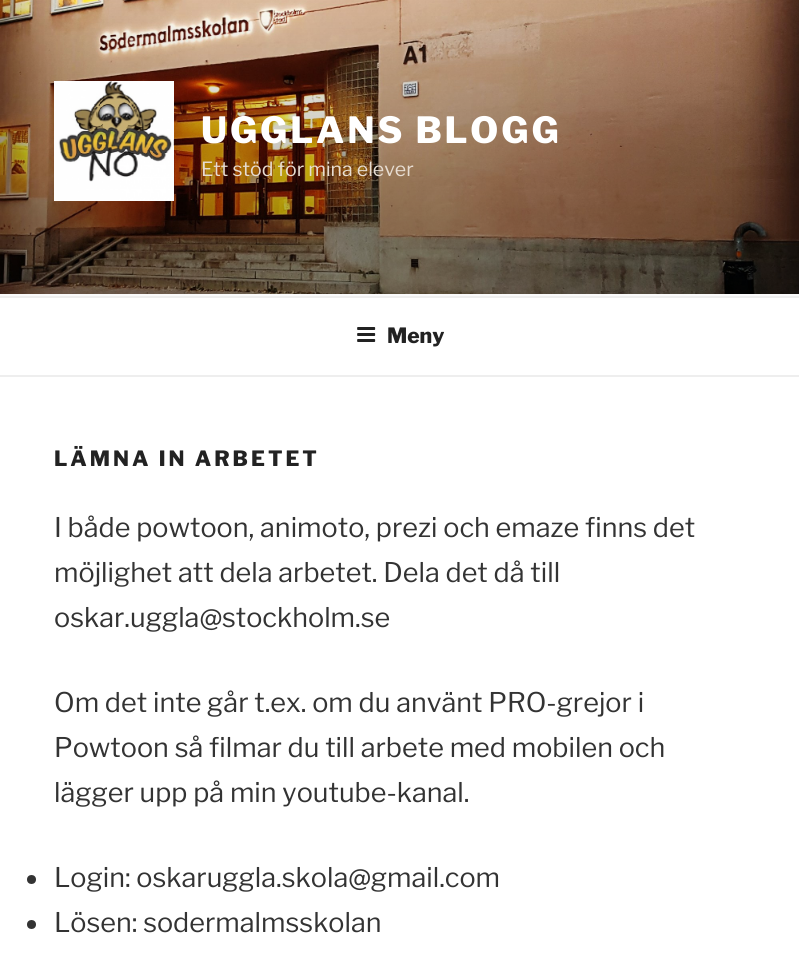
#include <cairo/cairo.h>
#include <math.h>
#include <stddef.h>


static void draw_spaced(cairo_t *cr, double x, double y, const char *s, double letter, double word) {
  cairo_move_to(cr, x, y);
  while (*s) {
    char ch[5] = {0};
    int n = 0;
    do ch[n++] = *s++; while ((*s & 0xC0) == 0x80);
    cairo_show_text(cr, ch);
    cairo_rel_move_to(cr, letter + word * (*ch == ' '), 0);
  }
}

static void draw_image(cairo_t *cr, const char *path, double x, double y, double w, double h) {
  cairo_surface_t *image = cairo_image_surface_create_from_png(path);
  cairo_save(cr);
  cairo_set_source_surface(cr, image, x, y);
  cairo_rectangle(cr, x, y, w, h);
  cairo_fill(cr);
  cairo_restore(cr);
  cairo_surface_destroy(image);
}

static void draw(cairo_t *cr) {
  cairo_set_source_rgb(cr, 1, 1, 1);
  cairo_paint(cr);
  cairo_set_source_rgb(cr, 250 / 255.0, 250 / 255.0, 250 / 255.0);
  cairo_rectangle(cr, 0, 294, 799, 2);
  cairo_fill(cr);
  draw_image(cr, "images/1.png", 0, 0, 799, 294);
  draw_image(cr, "images/2.png", 54, 81, 120, 120);
  cairo_set_source_rgb(cr, 238 / 255.0, 238 / 255.0, 238 / 255.0);
  cairo_rectangle(cr, 0, 296, 799, 2);
  cairo_fill(cr);
  cairo_rectangle(cr, 0, 375, 799, 2);
  cairo_fill(cr);
  draw_image(cr, "images/3.png", 357, 327, 19, 15);
  cairo_set_source_rgb(cr, 51 / 255.0, 51 / 255.0, 51 / 255.0);
  cairo_arc(cr, 31.5, 879.5, 4.5, 0, 2 * M_PI);
  cairo_fill(cr);
  cairo_arc(cr, 31.5, 924.5, 4.5, 0, 2 * M_PI);
  cairo_fill(cr);
  cairo_select_font_face(cr, "Libre Franklin ExtraBold", CAIRO_FONT_SLANT_NORMAL, CAIRO_FONT_WEIGHT_NORMAL);
  cairo_set_font_size(cr, 36);
  cairo_set_source_rgb(cr, 1, 1, 1);
  draw_spaced(cr, 201, 143, "UGGLANS BLOGG", 2.9, 0);
  cairo_select_font_face(cr, "Libre Franklin", CAIRO_FONT_SLANT_NORMAL, CAIRO_FONT_WEIGHT_NORMAL);
  cairo_set_font_size(cr, 19.5);
  cairo_set_source_rgb(cr, 231 / 255.0, 221 / 255.0, 210 / 255.0);
  cairo_move_to(cr, 201, 176);
  cairo_show_text(cr, "Ett stöd för mina elever");
  cairo_select_font_face(cr, "Libre Franklin ExtraBold", CAIRO_FONT_SLANT_NORMAL, CAIRO_FONT_WEIGHT_NORMAL);
  cairo_set_font_size(cr, 21);
  cairo_set_source_rgb(cr, 34 / 255.0, 34 / 255.0, 34 / 255.0);
  cairo_move_to(cr, 387, 343);
  cairo_show_text(cr, "Meny");
  draw_spaced(cr, 54, 466, "LÄMNA IN ARBETET", 3, 0);
  cairo_select_font_face(cr, "Libre Franklin", CAIRO_FONT_SLANT_NORMAL, CAIRO_FONT_WEIGHT_NORMAL);
  cairo_set_font_size(cr, 27);
  cairo_set_source_rgb(cr, 51 / 255.0, 51 / 255.0, 51 / 255.0);
  cairo_move_to(cr, 54, 537);
  cairo_show_text(cr, "I både powtoon, animoto, prezi och emaze finns det");
  cairo_move_to(cr, 54, 582);
  cairo_show_text(cr, "möjlighet att dela arbetet. Dela det då till");
  cairo_move_to(cr, 54, 627);
  cairo_show_text(cr, "oskar.uggla@stockholm.se");
  cairo_move_to(cr, 54, 712);
  cairo_show_text(cr, "Om det inte går t.ex. om du använt PRO-grejor i");
  cairo_move_to(cr, 54, 757);
  cairo_show_text(cr, "Powtoon så filmar du till arbete med mobilen och");
  cairo_move_to(cr, 54, 802);
  cairo_show_text(cr, "lägger upp på min youtube-kanal.");
  cairo_move_to(cr, 54, 887);
  cairo_show_text(cr, "Login: oskaruggla.skola@gmail.com");
  cairo_move_to(cr, 54, 932);
  cairo_show_text(cr, "Lösen: sodermalmsskolan");
}

int main(void) {
  cairo_surface_t *surface = cairo_image_surface_create(CAIRO_FORMAT_RGB24, 799, 958);
  cairo_t *cr = cairo_create(surface);
  cairo_font_options_t *options = cairo_font_options_create();
  cairo_font_options_set_hint_metrics(options, CAIRO_HINT_METRICS_OFF);
  cairo_font_options_set_hint_style(options, CAIRO_HINT_STYLE_NONE);
  cairo_set_font_options(cr, options);
  cairo_set_miter_limit(cr, 4);
  draw(cr);
  cairo_surface_write_to_png(surface, "out.png");
  cairo_font_options_destroy(options);
  cairo_destroy(cr);
  cairo_surface_destroy(surface);
  return 0;
}
